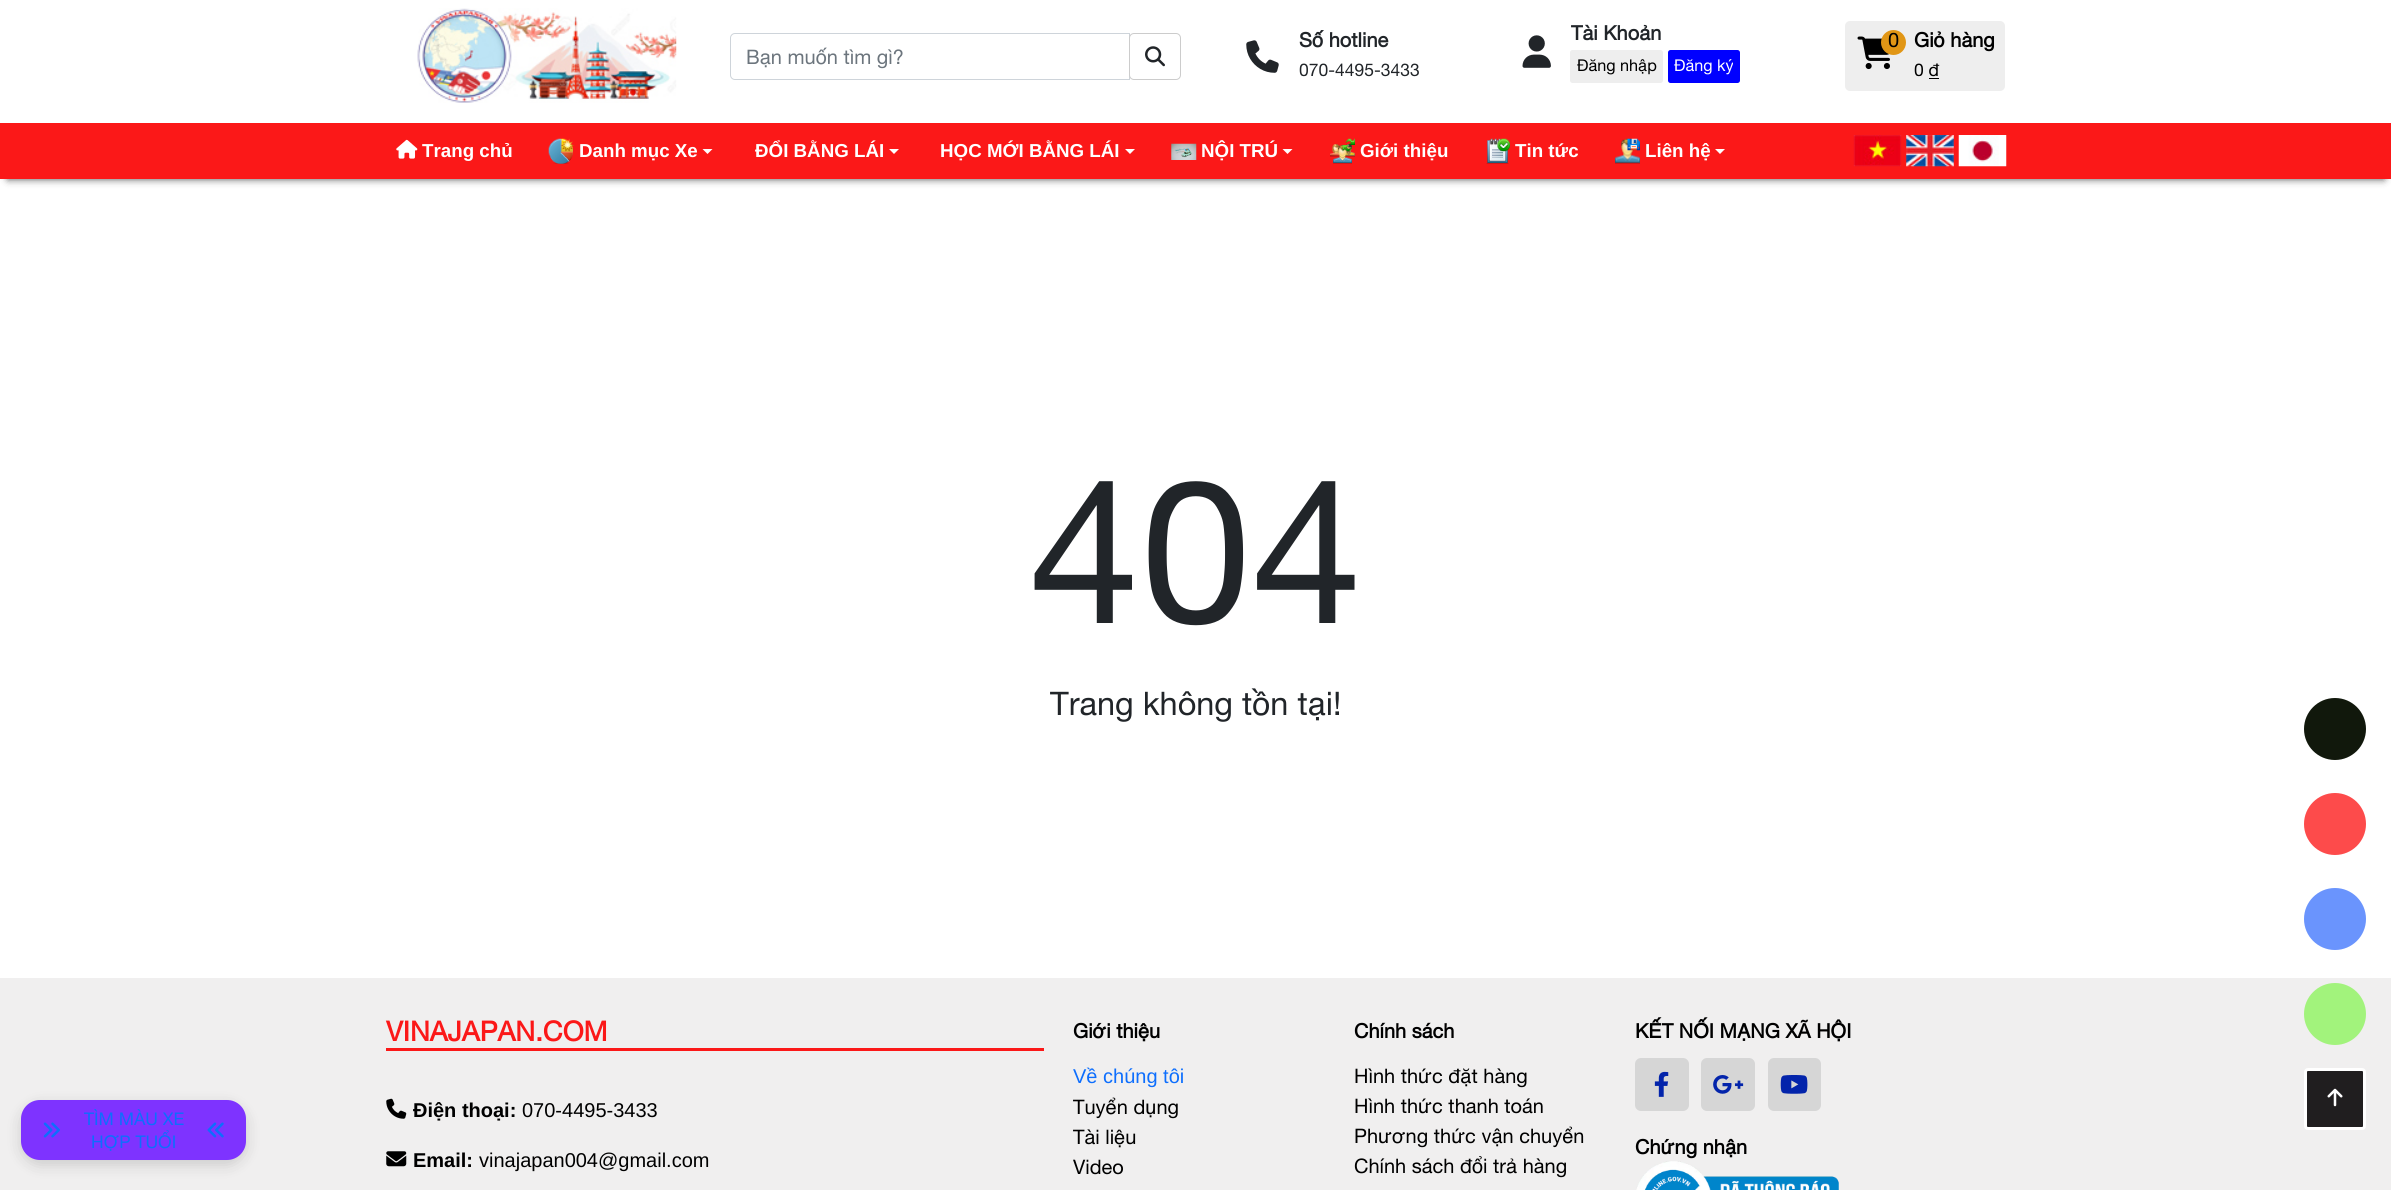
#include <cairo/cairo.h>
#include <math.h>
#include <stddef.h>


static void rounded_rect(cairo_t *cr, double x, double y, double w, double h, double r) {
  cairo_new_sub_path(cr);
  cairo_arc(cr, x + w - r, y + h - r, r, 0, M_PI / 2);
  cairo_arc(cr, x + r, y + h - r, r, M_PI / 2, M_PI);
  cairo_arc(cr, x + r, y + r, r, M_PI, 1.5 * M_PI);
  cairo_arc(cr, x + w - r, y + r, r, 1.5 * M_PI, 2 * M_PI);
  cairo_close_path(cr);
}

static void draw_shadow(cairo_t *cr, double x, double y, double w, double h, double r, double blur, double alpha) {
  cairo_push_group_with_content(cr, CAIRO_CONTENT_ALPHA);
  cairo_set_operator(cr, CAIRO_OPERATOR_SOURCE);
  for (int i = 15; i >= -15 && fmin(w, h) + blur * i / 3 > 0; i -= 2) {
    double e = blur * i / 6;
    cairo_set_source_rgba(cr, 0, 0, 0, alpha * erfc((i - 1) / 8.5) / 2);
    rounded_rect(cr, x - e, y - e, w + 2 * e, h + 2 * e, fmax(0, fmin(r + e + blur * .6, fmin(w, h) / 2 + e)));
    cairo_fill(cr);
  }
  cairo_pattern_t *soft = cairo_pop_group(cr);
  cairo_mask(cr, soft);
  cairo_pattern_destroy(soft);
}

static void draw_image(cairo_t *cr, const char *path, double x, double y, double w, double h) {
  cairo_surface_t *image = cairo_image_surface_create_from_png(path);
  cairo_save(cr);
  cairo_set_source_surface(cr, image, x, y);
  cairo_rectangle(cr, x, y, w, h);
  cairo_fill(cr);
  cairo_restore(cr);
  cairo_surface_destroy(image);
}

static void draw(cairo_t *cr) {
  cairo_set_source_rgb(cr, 1, 1, 1);
  cairo_paint(cr);
  draw_image(cr, "images/1.png", 417, 8, 260, 95);
  cairo_new_path(cr);
  cairo_move_to(cr, 735, 33.5);
  cairo_line_to(cr, 1129.5, 33.5);
  cairo_line_to(cr, 1129.5, 79.5);
  cairo_line_to(cr, 735, 79.5);
  cairo_curve_to(cr, 732.5, 79.5, 730.5, 77.5, 730.5, 75);
  cairo_line_to(cr, 730.5, 38);
  cairo_curve_to(cr, 730.5, 35.5, 732.5, 33.5, 735, 33.5);
  cairo_close_path(cr);
  cairo_set_source_rgb(cr, 206 / 255.0, 212 / 255.0, 218 / 255.0);
  cairo_set_line_width(cr, 1);
  cairo_stroke(cr);
  rounded_rect(cr, 1129.5, 33.5, 51, 46, 4.5);
  cairo_set_source_rgb(cr, 204 / 255.0, 204 / 255.0, 204 / 255.0);
  cairo_stroke(cr);
  draw_image(cr, "images/2.png", 1145, 46, 20, 21);
  draw_image(cr, "images/3.png", 1246, 40, 33, 33);
  draw_image(cr, "images/4.png", 1522, 35, 29, 33);
  cairo_set_source_rgb(cr, 238 / 255.0, 238 / 255.0, 238 / 255.0);
  rounded_rect(cr, 1570, 50, 93, 33, 2.5);
  cairo_fill(cr);
  cairo_set_source_rgb(cr, 0, 0, 1);
  rounded_rect(cr, 1668, 50, 72, 33, 2.5);
  cairo_fill(cr);
  cairo_set_source_rgb(cr, 238 / 255.0, 238 / 255.0, 238 / 255.0);
  rounded_rect(cr, 1845, 21, 160, 70, 5);
  cairo_fill(cr);
  draw_image(cr, "images/5.png", 1857, 36, 33, 34);
  cairo_set_source_rgb(cr, 225 / 255.0, 150 / 255.0, 21 / 255.0);
  cairo_arc(cr, 1893.5, 42.5, 12.5, 0, 2 * M_PI);
  cairo_fill(cr);
  cairo_set_source_rgb(cr, 0, 0, 0);
  cairo_rectangle(cr, 1929, 78, 10, 1);
  cairo_fill(cr);
  cairo_set_source_rgb(cr, 0, 0, 0);
  draw_shadow(cr, 8, 138, 2376, 41, 0, 4, 0.7);
  cairo_set_source_rgb(cr, 251 / 255.0, 24 / 255.0, 24 / 255.0);
  cairo_rectangle(cr, 0, 123, 2391, 56);
  cairo_fill(cr);
  draw_image(cr, "images/6.png", 396, 139, 22, 20);
  draw_image(cr, "images/7.png", 548, 138, 26, 26);
  cairo_set_source_rgb(cr, 1, 1, 1);
  cairo_new_path(cr);
  cairo_move_to(cr, 702.5, 149);
  cairo_line_to(cr, 712.5, 149);
  cairo_line_to(cr, 707.5, 154);
  cairo_close_path(cr);
  cairo_fill(cr);
  cairo_new_path(cr);
  cairo_move_to(cr, 889, 149);
  cairo_line_to(cr, 899, 149);
  cairo_line_to(cr, 894, 154);
  cairo_close_path(cr);
  cairo_fill(cr);
  cairo_new_path(cr);
  cairo_move_to(cr, 1125, 149);
  cairo_line_to(cr, 1135, 149);
  cairo_line_to(cr, 1130, 154);
  cairo_close_path(cr);
  cairo_fill(cr);
  draw_image(cr, "images/8.png", 1171, 143, 26, 17);
  cairo_new_path(cr);
  cairo_move_to(cr, 1282.5, 149);
  cairo_line_to(cr, 1292.5, 149);
  cairo_line_to(cr, 1287.5, 154);
  cairo_close_path(cr);
  cairo_fill(cr);
  draw_image(cr, "images/9.png", 1330, 138, 25, 26);
  draw_image(cr, "images/10.png", 1486, 138, 24, 26);
  draw_image(cr, "images/11.png", 1615, 138, 25, 26);
  cairo_new_path(cr);
  cairo_move_to(cr, 1715, 149);
  cairo_line_to(cr, 1725, 149);
  cairo_line_to(cr, 1720, 154);
  cairo_close_path(cr);
  cairo_fill(cr);
  draw_image(cr, "images/12.png", 1853, 135, 49, 32);
  draw_image(cr, "images/13.png", 1906, 135, 48, 32);
  draw_image(cr, "images/14.png", 1958, 135, 49, 32);
  cairo_set_source_rgb(cr, 17 / 255.0, 24 / 255.0, 12 / 255.0);
  cairo_arc(cr, 2335, 729, 31, 0, 2 * M_PI);
  cairo_fill(cr);
  cairo_set_source_rgb(cr, 253 / 255.0, 75 / 255.0, 75 / 255.0);
  cairo_arc(cr, 2335, 824, 31, 0, 2 * M_PI);
  cairo_fill(cr);
  cairo_set_source_rgb(cr, 106 / 255.0, 148 / 255.0, 253 / 255.0);
  cairo_arc(cr, 2335, 919, 31, 0, 2 * M_PI);
  cairo_fill(cr);
  cairo_set_source_rgb(cr, 240 / 255.0, 239 / 255.0, 239 / 255.0);
  cairo_rectangle(cr, 0, 978, 2391, 212);
  cairo_fill(cr);
  cairo_set_source_rgb(cr, 162 / 255.0, 243 / 255.0, 124 / 255.0);
  cairo_arc(cr, 2335, 1014, 31, 0, 2 * M_PI);
  cairo_fill(cr);
  cairo_set_source_rgb(cr, 0, 0, 0);
  draw_shadow(cr, 21, 1105, 225, 60, 19, 7.5, 0.15);
  cairo_set_source_rgb(cr, 126 / 255.0, 51 / 255.0, 1);
  rounded_rect(cr, 21, 1100, 225, 60, 19);
  cairo_fill(cr);
  draw_image(cr, "images/15.png", 43, 1122, 17, 16);
  draw_image(cr, "images/16.png", 207, 1122, 17, 16);
  cairo_set_source_rgb(cr, 251 / 255.0, 24 / 255.0, 24 / 255.0);
  cairo_rectangle(cr, 386, 1048, 658, 3);
  cairo_fill(cr);
  draw_image(cr, "images/17.png", 386, 1098, 21, 21);
  draw_image(cr, "images/18.png", 386, 1151, 21, 16);
  cairo_set_source_rgb(cr, 214 / 255.0, 214 / 255.0, 214 / 255.0);
  rounded_rect(cr, 1635, 1058, 54, 53, 6);
  cairo_fill(cr);
  draw_image(cr, "images/19.png", 1654, 1071, 15, 26);
  rounded_rect(cr, 1701, 1058, 54, 53, 6);
  cairo_fill(cr);
  draw_image(cr, "images/20.png", 1713, 1075, 31, 19);
  rounded_rect(cr, 1768, 1058, 53, 53, 6);
  cairo_fill(cr);
  draw_image(cr, "images/21.png", 1780, 1075, 28, 19);
  draw_image(cr, "images/22.png", 1636, 1161, 203, 29);
  cairo_set_source_rgb(cr, 32 / 255.0, 30 / 255.0, 31 / 255.0);
  rounded_rect(cr, 2305.5, 1069.5, 59, 59, 2.5);
  cairo_fill_preserve(cr);
  cairo_set_source_rgb(cr, 1, 1, 1);
  cairo_set_line_width(cr, 3);
  cairo_stroke(cr);
  draw_image(cr, "images/23.png", 2327, 1088, 16, 19);
  cairo_select_font_face(cr, "Helvetica Neue", CAIRO_FONT_SLANT_NORMAL, CAIRO_FONT_WEIGHT_NORMAL);
  cairo_set_font_size(cr, 20);
  cairo_set_source_rgb(cr, 108 / 255.0, 117 / 255.0, 125 / 255.0);
  cairo_move_to(cr, 746, 64);
  cairo_show_text(cr, "Bạn muốn tìm gì?");
  cairo_select_font_face(cr, "Helvetica Neue", CAIRO_FONT_SLANT_NORMAL, CAIRO_FONT_WEIGHT_BOLD);
  cairo_set_source_rgb(cr, 33 / 255.0, 37 / 255.0, 41 / 255.0);
  cairo_move_to(cr, 1299, 47);
  cairo_show_text(cr, "Số hotline");
  cairo_select_font_face(cr, "Helvetica Neue", CAIRO_FONT_SLANT_NORMAL, CAIRO_FONT_WEIGHT_NORMAL);
  cairo_set_font_size(cr, 17.5);
  cairo_move_to(cr, 1299, 76);
  cairo_show_text(cr, "070-4495-3433");
  cairo_select_font_face(cr, "Helvetica Neue", CAIRO_FONT_SLANT_NORMAL, CAIRO_FONT_WEIGHT_BOLD);
  cairo_set_font_size(cr, 20);
  cairo_move_to(cr, 1571, 40);
  cairo_show_text(cr, "Tài Khoản");
  cairo_select_font_face(cr, "Helvetica Neue", CAIRO_FONT_SLANT_NORMAL, CAIRO_FONT_WEIGHT_NORMAL);
  cairo_set_font_size(cr, 16.25);
  cairo_set_source_rgb(cr, 0, 0, 0);
  cairo_move_to(cr, 1577, 71);
  cairo_show_text(cr, "Đăng nhập");
  cairo_set_source_rgb(cr, 1, 1, 1);
  cairo_move_to(cr, 1674, 71);
  cairo_show_text(cr, "Đăng ký");
  cairo_set_font_size(cr, 20);
  cairo_set_source_rgb(cr, 0, 0, 0);
  cairo_move_to(cr, 1888, 47);
  cairo_show_text(cr, "0");
  cairo_select_font_face(cr, "Helvetica Neue", CAIRO_FONT_SLANT_NORMAL, CAIRO_FONT_WEIGHT_BOLD);
  cairo_move_to(cr, 1914, 47);
  cairo_show_text(cr, "Giỏ hàng");
  cairo_select_font_face(cr, "Helvetica Neue", CAIRO_FONT_SLANT_NORMAL, CAIRO_FONT_WEIGHT_NORMAL);
  cairo_set_font_size(cr, 17.5);
  cairo_move_to(cr, 1914, 76);
  cairo_show_text(cr, "0 đ");
  cairo_select_font_face(cr, "Liberation Sans", CAIRO_FONT_SLANT_NORMAL, CAIRO_FONT_WEIGHT_BOLD);
  cairo_set_font_size(cr, 18.75);
  cairo_set_source_rgb(cr, 1, 1, 1);
  cairo_move_to(cr, 422, 157);
  cairo_show_text(cr, "Trang chủ");
  cairo_move_to(cr, 579, 157);
  cairo_show_text(cr, "Danh mục Xe");
  cairo_move_to(cr, 755, 157);
  cairo_show_text(cr, "ĐỔI BẰNG LÁI");
  cairo_move_to(cr, 940, 157);
  cairo_show_text(cr, "HỌC MỚI BẰNG LÁI");
  cairo_move_to(cr, 1201, 157);
  cairo_show_text(cr, "NỘI TRÚ");
  cairo_move_to(cr, 1360, 157);
  cairo_show_text(cr, "Giới thiệu");
  cairo_move_to(cr, 1515, 157);
  cairo_show_text(cr, "Tin tức");
  cairo_move_to(cr, 1645, 157);
  cairo_show_text(cr, "Liên hệ");
  cairo_select_font_face(cr, "Helvetica Neue", CAIRO_FONT_SLANT_NORMAL, CAIRO_FONT_WEIGHT_NORMAL);
  cairo_set_font_size(cr, 200);
  cairo_set_source_rgb(cr, 33 / 255.0, 37 / 255.0, 41 / 255.0);
  cairo_move_to(cr, 1029, 623);
  cairo_show_text(cr, "404");
  cairo_set_font_size(cr, 32.5);
  cairo_move_to(cr, 1050, 715);
  cairo_show_text(cr, "Trang không tồn tại!");
  cairo_set_font_size(cr, 17.5);
  cairo_set_source_rgb(cr, 13 / 255.0, 110 / 255.0, 253 / 255.0);
  cairo_move_to(cr, 84, 1125);
  cairo_show_text(cr, "TÌM MÀU XE");
  cairo_move_to(cr, 91, 1148);
  cairo_show_text(cr, "HỢP TUỔI");
  cairo_select_font_face(cr, "Helvetica Neue", CAIRO_FONT_SLANT_NORMAL, CAIRO_FONT_WEIGHT_BOLD);
  cairo_set_font_size(cr, 27.5);
  cairo_set_source_rgb(cr, 251 / 255.0, 24 / 255.0, 24 / 255.0);
  cairo_move_to(cr, 386, 1041);
  cairo_show_text(cr, "VINAJAPAN.COM");
  cairo_select_font_face(cr, "Liberation Sans", CAIRO_FONT_SLANT_NORMAL, CAIRO_FONT_WEIGHT_BOLD);
  cairo_set_font_size(cr, 20);
  cairo_set_source_rgb(cr, 0, 0, 0);
  cairo_move_to(cr, 413, 1117);
  cairo_show_text(cr, "Điện thoại:");
  cairo_select_font_face(cr, "Liberation Sans", CAIRO_FONT_SLANT_NORMAL, CAIRO_FONT_WEIGHT_NORMAL);
  cairo_move_to(cr, 522, 1117);
  cairo_show_text(cr, "070-4495-3433");
  cairo_select_font_face(cr, "Liberation Sans", CAIRO_FONT_SLANT_NORMAL, CAIRO_FONT_WEIGHT_BOLD);
  cairo_move_to(cr, 413, 1167);
  cairo_show_text(cr, "Email:");
  cairo_select_font_face(cr, "Liberation Sans", CAIRO_FONT_SLANT_NORMAL, CAIRO_FONT_WEIGHT_NORMAL);
  cairo_move_to(cr, 479, 1167);
  cairo_show_text(cr, "vinajapan004@gmail.com");
  cairo_select_font_face(cr, "Helvetica Neue", CAIRO_FONT_SLANT_NORMAL, CAIRO_FONT_WEIGHT_BOLD);
  cairo_move_to(cr, 1073, 1038);
  cairo_show_text(cr, "Giới thiệu");
  cairo_select_font_face(cr, "Liberation Sans", CAIRO_FONT_SLANT_NORMAL, CAIRO_FONT_WEIGHT_NORMAL);
  cairo_set_source_rgb(cr, 13 / 255.0, 110 / 255.0, 253 / 255.0);
  cairo_move_to(cr, 1073, 1083);
  cairo_show_text(cr, "Về chúng tôi");
  cairo_select_font_face(cr, "Helvetica Neue", CAIRO_FONT_SLANT_NORMAL, CAIRO_FONT_WEIGHT_NORMAL);
  cairo_set_source_rgb(cr, 0, 0, 0);
  cairo_move_to(cr, 1073, 1114);
  cairo_show_text(cr, "Tuyển dụng");
  cairo_move_to(cr, 1073, 1144);
  cairo_show_text(cr, "Tài liệu");
  cairo_move_to(cr, 1073, 1174);
  cairo_show_text(cr, "Video");
  cairo_select_font_face(cr, "Helvetica Neue", CAIRO_FONT_SLANT_NORMAL, CAIRO_FONT_WEIGHT_BOLD);
  cairo_move_to(cr, 1354, 1038);
  cairo_show_text(cr, "Chính sách");
  cairo_select_font_face(cr, "Helvetica Neue", CAIRO_FONT_SLANT_NORMAL, CAIRO_FONT_WEIGHT_NORMAL);
  cairo_move_to(cr, 1354, 1083);
  cairo_show_text(cr, "Hình thức đặt hàng");
  cairo_move_to(cr, 1354, 1113);
  cairo_show_text(cr, "Hình thức thanh toán");
  cairo_move_to(cr, 1354, 1143);
  cairo_show_text(cr, "Phương thức vận chuyển");
  cairo_move_to(cr, 1354, 1173);
  cairo_show_text(cr, "Chính sách đổi trả hàng");
  cairo_select_font_face(cr, "Helvetica Neue", CAIRO_FONT_SLANT_NORMAL, CAIRO_FONT_WEIGHT_BOLD);
  cairo_move_to(cr, 1635, 1038);
  cairo_show_text(cr, "KẾT NỐI MẠNG XÃ HỘI");
  cairo_move_to(cr, 1635, 1154);
  cairo_show_text(cr, "Chứng nhận");
}

int main(void) {
  cairo_surface_t *surface = cairo_image_surface_create(CAIRO_FORMAT_RGB24, 2391, 1190);
  cairo_t *cr = cairo_create(surface);
  cairo_font_options_t *options = cairo_font_options_create();
  cairo_font_options_set_hint_metrics(options, CAIRO_HINT_METRICS_OFF);
  cairo_font_options_set_hint_style(options, CAIRO_HINT_STYLE_NONE);
  cairo_set_font_options(cr, options);
  cairo_set_miter_limit(cr, 4);
  draw(cr);
  cairo_surface_write_to_png(surface, "out.png");
  cairo_font_options_destroy(options);
  cairo_destroy(cr);
  cairo_surface_destroy(surface);
  return 0;
}
